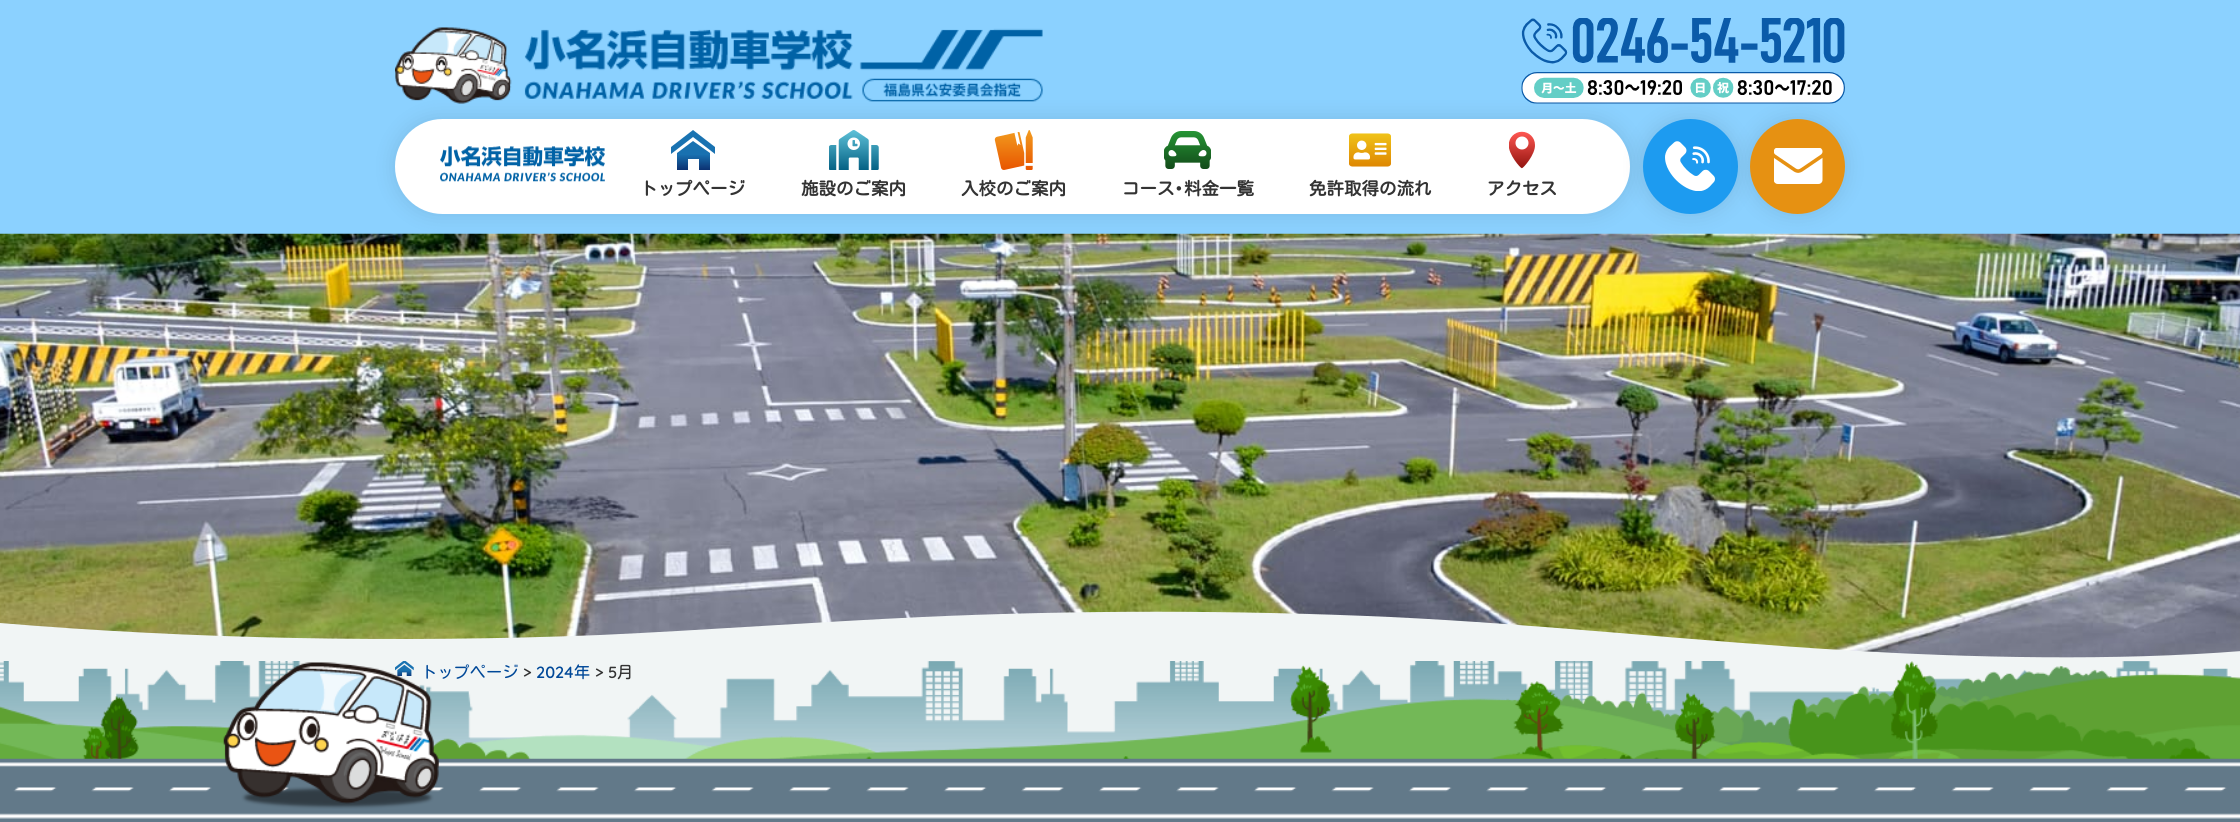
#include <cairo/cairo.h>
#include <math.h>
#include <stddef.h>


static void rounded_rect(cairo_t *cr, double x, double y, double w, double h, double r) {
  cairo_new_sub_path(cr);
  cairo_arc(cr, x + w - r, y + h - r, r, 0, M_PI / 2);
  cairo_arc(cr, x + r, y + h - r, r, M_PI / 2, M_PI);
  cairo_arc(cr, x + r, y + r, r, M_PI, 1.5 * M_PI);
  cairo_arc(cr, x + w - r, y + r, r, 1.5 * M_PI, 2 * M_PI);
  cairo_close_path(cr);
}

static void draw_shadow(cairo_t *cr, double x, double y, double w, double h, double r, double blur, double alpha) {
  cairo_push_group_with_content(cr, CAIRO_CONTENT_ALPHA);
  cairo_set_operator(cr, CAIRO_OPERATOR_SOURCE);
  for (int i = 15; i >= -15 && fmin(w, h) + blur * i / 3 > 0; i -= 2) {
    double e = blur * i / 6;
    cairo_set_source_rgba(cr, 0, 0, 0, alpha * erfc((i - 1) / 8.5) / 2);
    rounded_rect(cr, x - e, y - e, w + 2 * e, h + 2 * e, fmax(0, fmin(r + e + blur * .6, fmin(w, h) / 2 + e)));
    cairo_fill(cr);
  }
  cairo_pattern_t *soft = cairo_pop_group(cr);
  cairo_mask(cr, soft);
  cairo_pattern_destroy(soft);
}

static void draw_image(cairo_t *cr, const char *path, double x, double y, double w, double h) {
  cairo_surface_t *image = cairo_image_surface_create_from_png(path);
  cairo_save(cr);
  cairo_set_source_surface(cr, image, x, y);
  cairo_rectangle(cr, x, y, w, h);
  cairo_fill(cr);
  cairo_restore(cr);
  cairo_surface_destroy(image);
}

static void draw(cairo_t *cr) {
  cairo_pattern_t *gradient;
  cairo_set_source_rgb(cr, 139 / 255.0, 209 / 255.0, 1);
  cairo_paint(cr);
  draw_image(cr, "images/1.png", 395, 27, 648, 77);
  draw_image(cr, "images/2.png", 1521, 18, 324, 86);
  draw_image(cr, "images/15.png", 0, 233, 2240, 425);
  cairo_set_source_rgb(cr, 0, 0, 0);
  draw_shadow(cr, 394, 118, 1237, 97, 48.5, 10, 0.1);
  cairo_set_source_rgb(cr, 1, 1, 1);
  rounded_rect(cr, 395, 119, 1235, 95, 47.5);
  cairo_fill(cr);
  draw_image(cr, "images/3.png", 440, 146, 165, 36);
  gradient = cairo_pattern_create_linear(693, 130, 693, 170);
  cairo_pattern_add_color_stop_rgba(gradient, 0, 25 / 255.0, 116 / 255.0, 178 / 255.0, 1);
  cairo_pattern_add_color_stop_rgba(gradient, 0.61, 25 / 255.0, 113 / 255.0, 176 / 255.0, 1);
  cairo_pattern_add_color_stop_rgba(gradient, 1, 12 / 255.0, 49 / 255.0, 113 / 255.0, 1);
  cairo_set_source(cr, gradient);
  cairo_pattern_destroy(gradient);
  cairo_new_path(cr);
  cairo_move_to(cr, 715, 154);
  cairo_line_to(cr, 693, 137);
  cairo_line_to(cr, 671, 154);
  cairo_line_to(cr, 671, 147);
  cairo_line_to(cr, 693, 130);
  cairo_line_to(cr, 715, 147);
  cairo_close_path(cr);
  cairo_move_to(cr, 710, 153);
  cairo_line_to(cr, 710, 170);
  cairo_line_to(cr, 699, 170);
  cairo_line_to(cr, 699, 159);
  cairo_line_to(cr, 688, 159);
  cairo_line_to(cr, 688, 170);
  cairo_line_to(cr, 677, 170);
  cairo_line_to(cr, 677, 153);
  cairo_line_to(cr, 693, 141);
  cairo_close_path(cr);
  cairo_fill(cr);
  draw_image(cr, "images/4.png", 829, 130, 50, 40);
  draw_image(cr, "images/5.png", 994, 130, 39, 40);
  draw_image(cr, "images/6.png", 1164, 131, 47, 38);
  draw_image(cr, "images/7.png", 1349, 133, 42, 34);
  draw_image(cr, "images/8.png", 1509, 131, 26, 38);
  cairo_set_source_rgb(cr, 0, 0, 0);
  draw_shadow(cr, 1641, 118, 98, 97, 48.5, 10, 0.1);
  cairo_set_source_rgb(cr, 29 / 255.0, 155 / 255.0, 240 / 255.0);
  cairo_arc(cr, 1690.5, 166.5, 47.5, 0, 2 * M_PI);
  cairo_fill(cr);
  draw_image(cr, "images/9.png", 1665, 141, 50, 50);
  cairo_set_source_rgb(cr, 0, 0, 0);
  draw_shadow(cr, 1749, 118, 97, 97, 48.5, 10, 0.1);
  cairo_set_source_rgb(cr, 230 / 255.0, 145 / 255.0, 18 / 255.0);
  cairo_arc(cr, 1797.5, 166.5, 47.5, 0, 2 * M_PI);
  cairo_fill(cr);
  draw_image(cr, "images/10.png", 1774, 148, 49, 36);
  cairo_set_source_rgb(cr, 241 / 255.0, 245 / 255.0, 245 / 255.0);
  cairo_rectangle(cr, 0, 661, 2240, 78);
  cairo_fill(cr);
  cairo_new_path(cr);
  cairo_move_to(cr, 1841, 650);
  cairo_curve_to(cr, 1694, 641, 1539, 624, 1390, 617);
  cairo_curve_to(cr, 1236, 610, 1076, 610, 922, 617);
  cairo_curve_to(cr, 814, 622, 709, 630, 600, 635);
  cairo_curve_to(cr, 399, 643, 191, 639, 0, 623);
  cairo_line_to(cr, 0, 661);
  cairo_line_to(cr, 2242, 661);
  cairo_line_to(cr, 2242, 651);
  cairo_curve_to(cr, 2115, 661, 1972, 658, 1841, 650);
  cairo_close_path(cr);
  cairo_fill(cr);
  draw_image(cr, "images/16.png", 395, 661, 19, 15);
  cairo_select_font_face(cr, "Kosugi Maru", CAIRO_FONT_SLANT_NORMAL, CAIRO_FONT_WEIGHT_BOLD);
  cairo_set_font_size(cr, 17.5);
  cairo_set_source_rgb(cr, 51 / 255.0, 51 / 255.0, 51 / 255.0);
  cairo_move_to(cr, 640, 195);
  cairo_show_text(cr, "トップページ");
  cairo_move_to(cr, 801, 195);
  cairo_show_text(cr, "施設のご案内");
  cairo_move_to(cr, 961, 195);
  cairo_show_text(cr, "入校のご案内");
  cairo_move_to(cr, 1122, 195);
  cairo_show_text(cr, "コース");
  cairo_select_font_face(cr, "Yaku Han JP", CAIRO_FONT_SLANT_NORMAL, CAIRO_FONT_WEIGHT_BOLD);
  cairo_move_to(cr, 1174, 195);
  cairo_show_text(cr, "・");
  cairo_select_font_face(cr, "Kosugi Maru", CAIRO_FONT_SLANT_NORMAL, CAIRO_FONT_WEIGHT_BOLD);
  cairo_move_to(cr, 1184, 195);
  cairo_show_text(cr, "料金一覧");
  cairo_move_to(cr, 1309, 195);
  cairo_show_text(cr, "免許取得の流れ");
  cairo_move_to(cr, 1487, 195);
  cairo_show_text(cr, "アクセス");
  cairo_select_font_face(cr, "Kosugi Maru", CAIRO_FONT_SLANT_NORMAL, CAIRO_FONT_WEIGHT_NORMAL);
  cairo_set_font_size(cr, 16.25);
  cairo_set_source_rgb(cr, 0, 72 / 255.0, 152 / 255.0);
  cairo_move_to(cr, 421, 678);
  cairo_show_text(cr, "トップページ");
  cairo_select_font_face(cr, "Quicksand SemiBold", CAIRO_FONT_SLANT_NORMAL, CAIRO_FONT_WEIGHT_NORMAL);
  cairo_set_source_rgb(cr, 51 / 255.0, 51 / 255.0, 51 / 255.0);
  cairo_move_to(cr, 523, 678);
  cairo_show_text(cr, ">");
  cairo_set_source_rgb(cr, 0, 72 / 255.0, 152 / 255.0);
  cairo_move_to(cr, 536, 678);
  cairo_show_text(cr, "2024");
  cairo_select_font_face(cr, "Kosugi Maru", CAIRO_FONT_SLANT_NORMAL, CAIRO_FONT_WEIGHT_NORMAL);
  cairo_move_to(cr, 574, 678);
  cairo_show_text(cr, "年");
  cairo_select_font_face(cr, "Quicksand SemiBold", CAIRO_FONT_SLANT_NORMAL, CAIRO_FONT_WEIGHT_NORMAL);
  cairo_set_source_rgb(cr, 51 / 255.0, 51 / 255.0, 51 / 255.0);
  cairo_move_to(cr, 595, 678);
  cairo_show_text(cr, "> 5");
  cairo_select_font_face(cr, "Kosugi Maru", CAIRO_FONT_SLANT_NORMAL, CAIRO_FONT_WEIGHT_NORMAL);
  cairo_move_to(cr, 617, 678);
  cairo_show_text(cr, "月");
  draw_image(cr, "images/11.png", 0, 661, 2232, 92);
  draw_image(cr, "images/12.png", 0, 661, 2240, 98);
  draw_image(cr, "images/14.png", 0, 758, 2240, 64);
  draw_image(cr, "images/13.png", 223, 662, 216, 147);
}

int main(void) {
  cairo_surface_t *surface = cairo_image_surface_create(CAIRO_FORMAT_RGB24, 2240, 822);
  cairo_t *cr = cairo_create(surface);
  cairo_font_options_t *options = cairo_font_options_create();
  cairo_font_options_set_hint_metrics(options, CAIRO_HINT_METRICS_OFF);
  cairo_font_options_set_hint_style(options, CAIRO_HINT_STYLE_NONE);
  cairo_set_font_options(cr, options);
  cairo_set_miter_limit(cr, 4);
  draw(cr);
  cairo_surface_write_to_png(surface, "out.png");
  cairo_font_options_destroy(options);
  cairo_destroy(cr);
  cairo_surface_destroy(surface);
  return 0;
}
